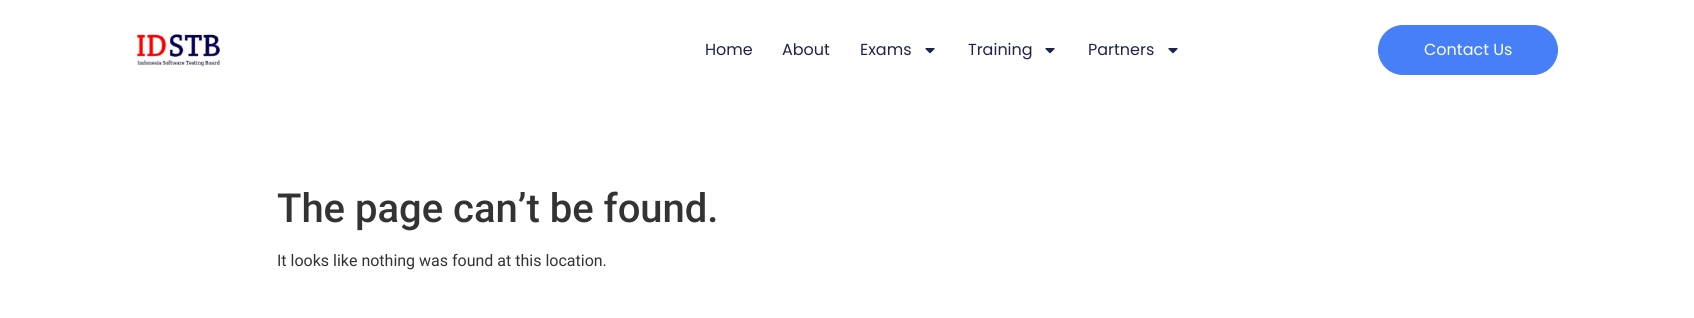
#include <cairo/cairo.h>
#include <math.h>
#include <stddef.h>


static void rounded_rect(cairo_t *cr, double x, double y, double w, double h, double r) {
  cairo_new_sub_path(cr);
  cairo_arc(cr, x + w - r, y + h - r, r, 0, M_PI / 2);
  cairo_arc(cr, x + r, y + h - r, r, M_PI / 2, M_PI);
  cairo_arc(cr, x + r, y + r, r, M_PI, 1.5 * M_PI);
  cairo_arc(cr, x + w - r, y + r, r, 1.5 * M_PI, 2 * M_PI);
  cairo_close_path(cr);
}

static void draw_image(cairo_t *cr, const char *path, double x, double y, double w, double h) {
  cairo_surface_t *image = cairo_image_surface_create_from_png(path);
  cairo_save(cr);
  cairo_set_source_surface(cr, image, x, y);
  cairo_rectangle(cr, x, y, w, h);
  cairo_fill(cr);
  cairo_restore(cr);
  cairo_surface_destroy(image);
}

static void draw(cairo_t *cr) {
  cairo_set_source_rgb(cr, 1, 1, 1);
  cairo_paint(cr);
  draw_image(cr, "images/1.png", 136, 34, 84, 33);
  draw_image(cr, "images/2.png", 925, 48, 10, 6);
  draw_image(cr, "images/2.png", 1045, 48, 10, 6);
  draw_image(cr, "images/2.png", 1168, 48, 10, 6);
  cairo_set_source_rgb(cr, 70 / 255.0, 127 / 255.0, 247 / 255.0);
  rounded_rect(cr, 1378.5, 25.5, 179, 49, 24.5);
  cairo_fill_preserve(cr);
  cairo_set_line_width(cr, 1);
  cairo_stroke(cr);
  cairo_select_font_face(cr, "Poppins", CAIRO_FONT_SLANT_NORMAL, CAIRO_FONT_WEIGHT_NORMAL);
  cairo_set_font_size(cr, 16);
  cairo_set_source_rgb(cr, 28 / 255.0, 36 / 255.0, 75 / 255.0);
  cairo_move_to(cr, 705, 55);
  cairo_show_text(cr, "Home");
  cairo_move_to(cr, 782, 55);
  cairo_show_text(cr, "About");
  cairo_move_to(cr, 860, 55);
  cairo_show_text(cr, "Exams");
  cairo_move_to(cr, 968, 55);
  cairo_show_text(cr, "Training");
  cairo_move_to(cr, 1088, 55);
  cairo_show_text(cr, "Partners");
  cairo_set_source_rgb(cr, 1, 1, 1);
  cairo_move_to(cr, 1424, 55);
  cairo_show_text(cr, "Contact Us");
  cairo_select_font_face(cr, "Roboto Medium", CAIRO_FONT_SLANT_NORMAL, CAIRO_FONT_WEIGHT_NORMAL);
  cairo_set_font_size(cr, 40);
  cairo_set_source_rgb(cr, 51 / 255.0, 51 / 255.0, 51 / 255.0);
  cairo_move_to(cr, 277, 222);
  cairo_show_text(cr, "The page can’t be found.");
  cairo_select_font_face(cr, "Roboto", CAIRO_FONT_SLANT_NORMAL, CAIRO_FONT_WEIGHT_NORMAL);
  cairo_set_font_size(cr, 16);
  cairo_move_to(cr, 277, 266);
  cairo_show_text(cr, "It looks like nothing was found at this location.");
}

int main(void) {
  cairo_surface_t *surface = cairo_image_surface_create(CAIRO_FORMAT_RGB24, 1694, 318);
  cairo_t *cr = cairo_create(surface);
  cairo_font_options_t *options = cairo_font_options_create();
  cairo_font_options_set_hint_metrics(options, CAIRO_HINT_METRICS_OFF);
  cairo_font_options_set_hint_style(options, CAIRO_HINT_STYLE_NONE);
  cairo_set_font_options(cr, options);
  cairo_set_miter_limit(cr, 4);
  draw(cr);
  cairo_surface_write_to_png(surface, "out.png");
  cairo_font_options_destroy(options);
  cairo_destroy(cr);
  cairo_surface_destroy(surface);
  return 0;
}
